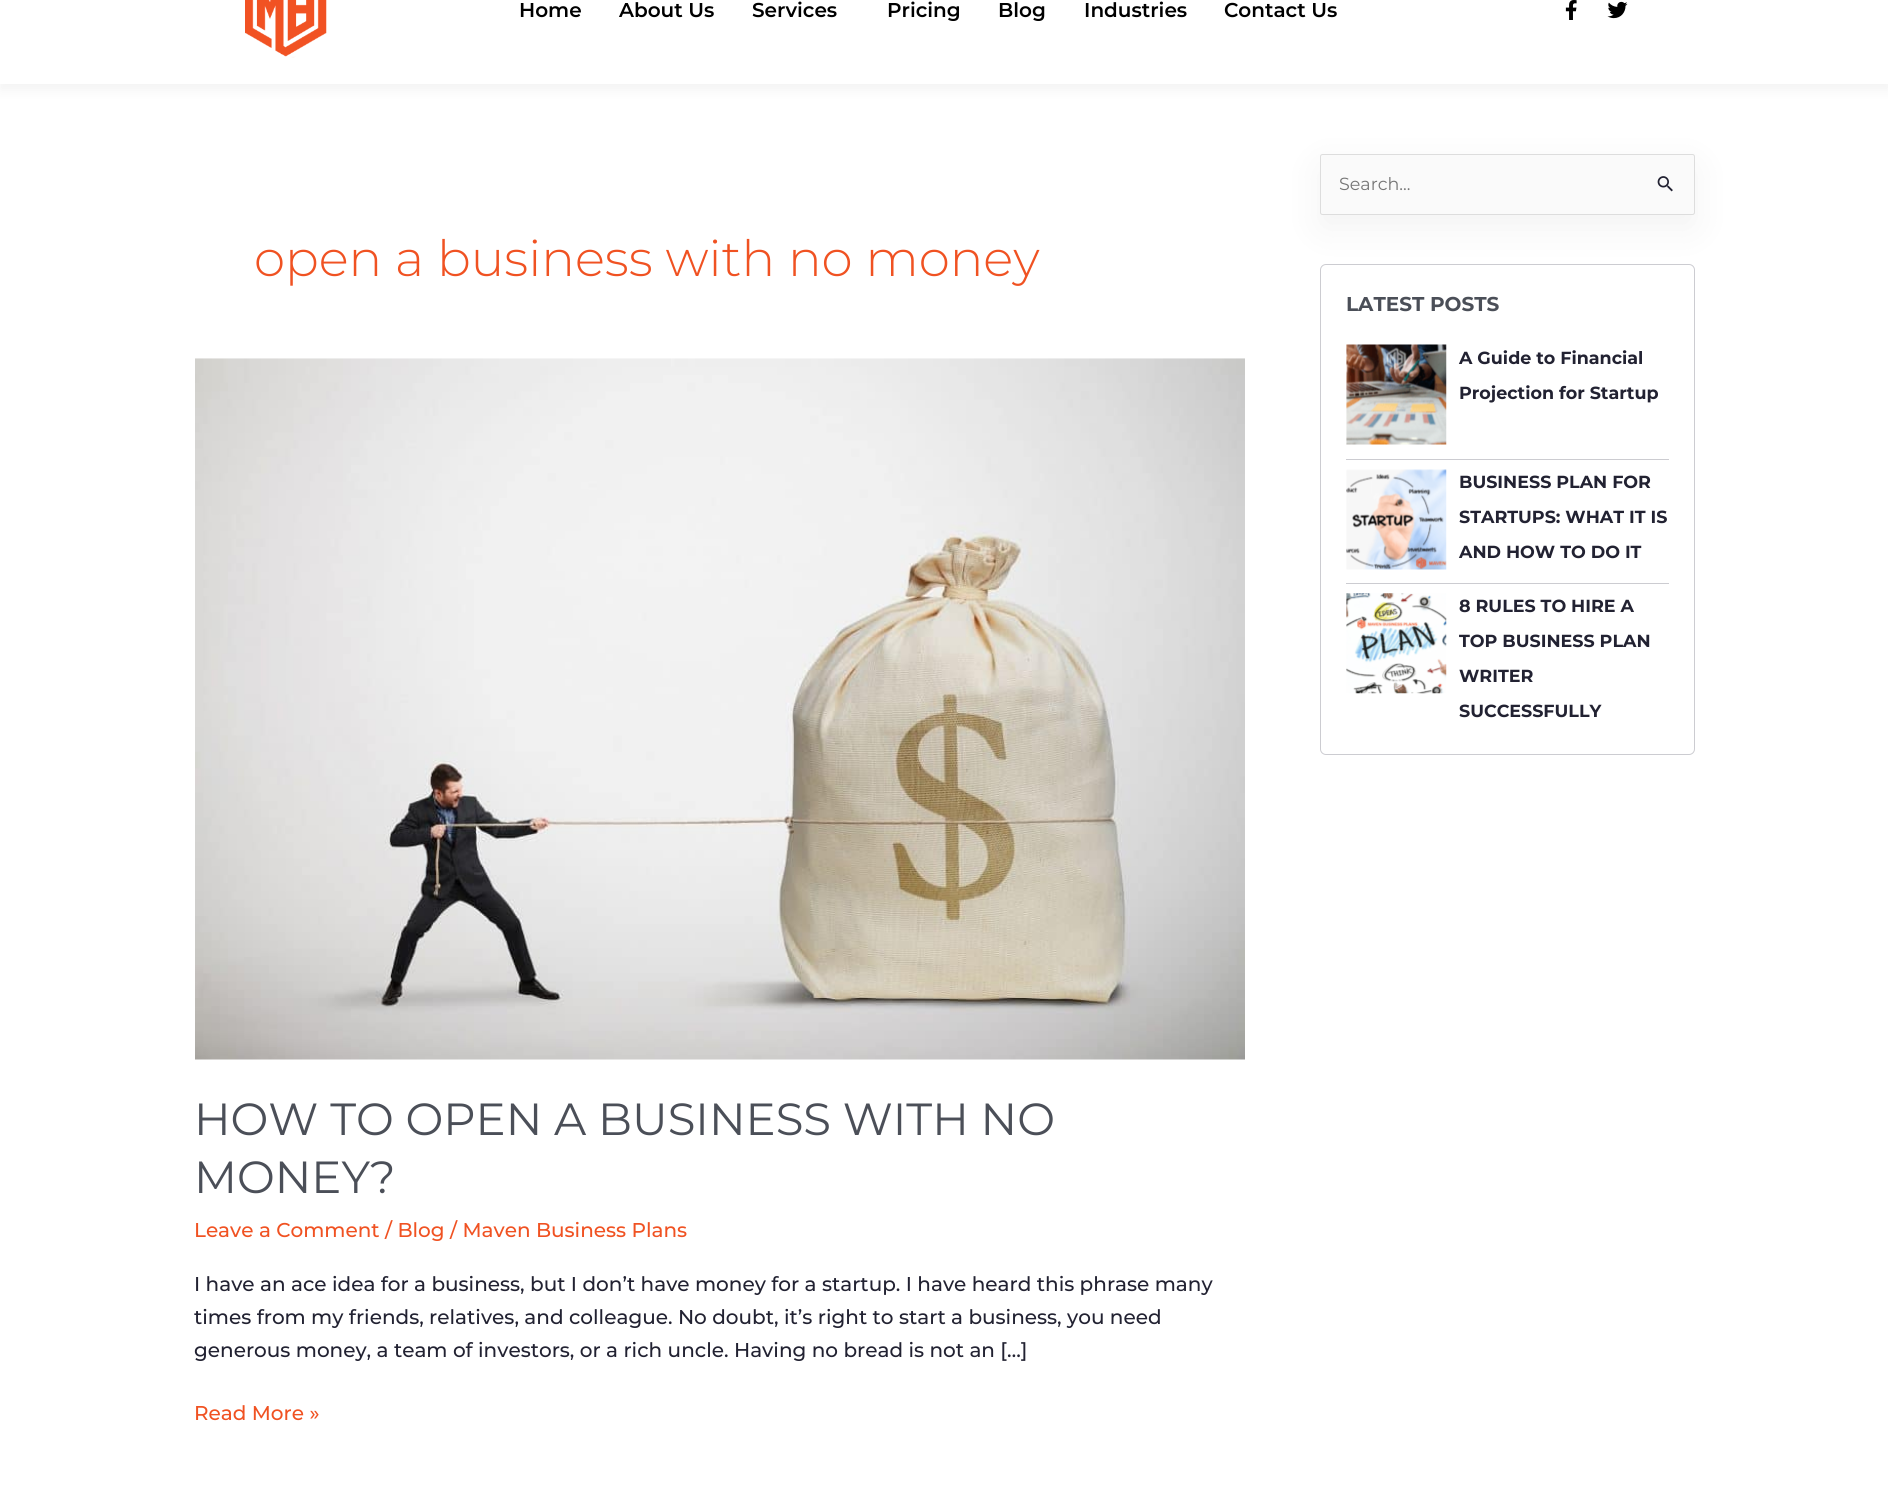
#include <cairo/cairo.h>
#include <math.h>
#include <stddef.h>


static void rounded_rect(cairo_t *cr, double x, double y, double w, double h, double r) {
  cairo_new_sub_path(cr);
  cairo_arc(cr, x + w - r, y + h - r, r, 0, M_PI / 2);
  cairo_arc(cr, x + r, y + h - r, r, M_PI / 2, M_PI);
  cairo_arc(cr, x + r, y + r, r, M_PI, 1.5 * M_PI);
  cairo_arc(cr, x + w - r, y + r, r, 1.5 * M_PI, 2 * M_PI);
  cairo_close_path(cr);
}

static void draw_shadow(cairo_t *cr, double x, double y, double w, double h, double r, double blur, double alpha) {
  cairo_push_group_with_content(cr, CAIRO_CONTENT_ALPHA);
  cairo_set_operator(cr, CAIRO_OPERATOR_SOURCE);
  for (int i = 15; i >= -15 && fmin(w, h) + blur * i / 3 > 0; i -= 2) {
    double e = blur * i / 6;
    cairo_set_source_rgba(cr, 0, 0, 0, alpha * erfc((i - 1) / 8.5) / 2);
    rounded_rect(cr, x - e, y - e, w + 2 * e, h + 2 * e, fmax(0, fmin(r + e + blur * .6, fmin(w, h) / 2 + e)));
    cairo_fill(cr);
  }
  cairo_pattern_t *soft = cairo_pop_group(cr);
  cairo_mask(cr, soft);
  cairo_pattern_destroy(soft);
}

static void draw_image(cairo_t *cr, const char *path, double x, double y, double w, double h) {
  cairo_surface_t *image = cairo_image_surface_create_from_png(path);
  cairo_save(cr);
  cairo_set_source_surface(cr, image, x, y);
  cairo_rectangle(cr, x, y, w, h);
  cairo_fill(cr);
  cairo_restore(cr);
  cairo_surface_destroy(image);
}

static void draw(cairo_t *cr) {
  cairo_set_source_rgb(cr, 1, 1, 1);
  cairo_paint(cr);
  cairo_set_source_rgb(cr, 0, 0, 0);
  draw_shadow(cr, 0, -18, 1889, 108, 0, 6, 0.05);
  cairo_set_source_rgb(cr, 1, 1, 1);
  cairo_rectangle(cr, 0, 0, 1888, 84);
  cairo_fill(cr);
  draw_image(cr, "images/1.png", 245, 0, 82, 58);
  draw_image(cr, "images/2.png", 1565, 0, 12, 20);
  draw_image(cr, "images/3.png", 1607, 1, 21, 18);
  draw_image(cr, "images/4.png", 195, 358, 1050, 702);
  rounded_rect(cr, 1320.5, 264.5, 374, 490, 5.5);
  cairo_set_source_rgb(cr, 204 / 255.0, 204 / 255.0, 209 / 255.0);
  cairo_set_line_width(cr, 1);
  cairo_stroke(cr);
  cairo_set_source_rgb(cr, 0, 0, 0);
  draw_shadow(cr, 1320, 166, 375, 62, 2.5, 19, 0.05);
  cairo_set_source_rgb(cr, 250 / 255.0, 250 / 255.0, 250 / 255.0);
  rounded_rect(cr, 1320.5, 154.5, 374, 60, 2);
  cairo_fill_preserve(cr);
  cairo_set_source_rgb(cr, 221 / 255.0, 221 / 255.0, 221 / 255.0);
  cairo_stroke(cr);
  draw_image(cr, "images/5.png", 1657, 176, 16, 16);
  cairo_set_source_rgb(cr, 204 / 255.0, 204 / 255.0, 209 / 255.0);
  cairo_rectangle(cr, 1346, 459, 323, 1);
  cairo_fill(cr);
  draw_image(cr, "images/6.png", 1346, 344, 101, 101);
  cairo_rectangle(cr, 1346, 583, 323, 1);
  cairo_fill(cr);
  draw_image(cr, "images/7.png", 1346, 469, 101, 101);
  draw_image(cr, "images/8.png", 1346, 593, 101, 101);
  cairo_select_font_face(cr, "Montserrat SemiBold", CAIRO_FONT_SLANT_NORMAL, CAIRO_FONT_WEIGHT_NORMAL);
  cairo_set_font_size(cr, 20);
  cairo_set_source_rgb(cr, 0, 0, 0);
  cairo_move_to(cr, 519, 17);
  cairo_show_text(cr, "Home");
  cairo_move_to(cr, 619, 17);
  cairo_show_text(cr, "About Us");
  cairo_move_to(cr, 752, 17);
  cairo_show_text(cr, "Services");
  cairo_move_to(cr, 887, 17);
  cairo_show_text(cr, "Pricing");
  cairo_move_to(cr, 998, 17);
  cairo_show_text(cr, "Blog");
  cairo_move_to(cr, 1084, 17);
  cairo_show_text(cr, "Industries");
  cairo_move_to(cr, 1224, 17);
  cairo_show_text(cr, "Contact Us");
  cairo_select_font_face(cr, "Montserrat Light", CAIRO_FONT_SLANT_NORMAL, CAIRO_FONT_WEIGHT_NORMAL);
  cairo_set_font_size(cr, 50);
  cairo_set_source_rgb(cr, 240 / 255.0, 82 / 255.0, 34 / 255.0);
  cairo_move_to(cr, 254, 276);
  cairo_show_text(cr, "open a business with no money");
  cairo_select_font_face(cr, "Montserrat", CAIRO_FONT_SLANT_NORMAL, CAIRO_FONT_WEIGHT_NORMAL);
  cairo_set_font_size(cr, 45);
  cairo_set_source_rgb(cr, 75 / 255.0, 79 / 255.0, 88 / 255.0);
  cairo_move_to(cr, 194, 1135);
  cairo_show_text(cr, "HOW TO OPEN A BUSINESS WITH NO");
  cairo_move_to(cr, 194, 1193);
  cairo_show_text(cr, "MONEY?");
  cairo_select_font_face(cr, "Montserrat Medium", CAIRO_FONT_SLANT_NORMAL, CAIRO_FONT_WEIGHT_NORMAL);
  cairo_set_font_size(cr, 20);
  cairo_set_source_rgb(cr, 240 / 255.0, 82 / 255.0, 34 / 255.0);
  cairo_move_to(cr, 194, 1237);
  cairo_show_text(cr, "Leave a Comment / Blog / Maven Business Plans");
  cairo_set_source_rgb(cr, 34 / 255.0, 34 / 255.0, 50 / 255.0);
  cairo_move_to(cr, 194, 1291);
  cairo_show_text(cr, "I have an ace idea for a business, but I don’t have money for a startup. I have heard this phrase many");
  cairo_move_to(cr, 194, 1324);
  cairo_show_text(cr, "times from my friends, relatives, and colleague. No doubt, it’s right to start a business, you need");
  cairo_move_to(cr, 194, 1357);
  cairo_show_text(cr, "generous money, a team of investors, or a rich uncle. Having no bread is not an […]");
  cairo_set_source_rgb(cr, 240 / 255.0, 82 / 255.0, 34 / 255.0);
  cairo_move_to(cr, 194, 1420);
  cairo_show_text(cr, "Read More »");
  cairo_select_font_face(cr, "Montserrat", CAIRO_FONT_SLANT_NORMAL, CAIRO_FONT_WEIGHT_NORMAL);
  cairo_set_font_size(cr, 17.5);
  cairo_set_source_rgb(cr, 117 / 255.0, 117 / 255.0, 117 / 255.0);
  cairo_move_to(cr, 1339, 190);
  cairo_show_text(cr, "Search...");
  cairo_select_font_face(cr, "Montserrat", CAIRO_FONT_SLANT_NORMAL, CAIRO_FONT_WEIGHT_BOLD);
  cairo_set_font_size(cr, 20);
  cairo_set_source_rgb(cr, 75 / 255.0, 79 / 255.0, 88 / 255.0);
  cairo_move_to(cr, 1346, 311);
  cairo_show_text(cr, "LATEST POSTS");
  cairo_set_font_size(cr, 17.5);
  cairo_set_source_rgb(cr, 34 / 255.0, 34 / 255.0, 50 / 255.0);
  cairo_move_to(cr, 1459, 364);
  cairo_show_text(cr, "A Guide to Financial");
  cairo_move_to(cr, 1459, 399);
  cairo_show_text(cr, "Projection for Startup");
  cairo_move_to(cr, 1459, 488);
  cairo_show_text(cr, "BUSINESS PLAN FOR");
  cairo_move_to(cr, 1459, 523);
  cairo_show_text(cr, "STARTUPS: WHAT IT IS");
  cairo_move_to(cr, 1459, 558);
  cairo_show_text(cr, "AND HOW TO DO IT");
  cairo_move_to(cr, 1459, 612);
  cairo_show_text(cr, "8 RULES TO HIRE A");
  cairo_move_to(cr, 1459, 647);
  cairo_show_text(cr, "TOP BUSINESS PLAN");
  cairo_move_to(cr, 1459, 682);
  cairo_show_text(cr, "WRITER");
  cairo_move_to(cr, 1459, 717);
  cairo_show_text(cr, "SUCCESSFULLY");
}

int main(void) {
  cairo_surface_t *surface = cairo_image_surface_create(CAIRO_FORMAT_RGB24, 1888, 1485);
  cairo_t *cr = cairo_create(surface);
  cairo_font_options_t *options = cairo_font_options_create();
  cairo_font_options_set_hint_metrics(options, CAIRO_HINT_METRICS_OFF);
  cairo_font_options_set_hint_style(options, CAIRO_HINT_STYLE_NONE);
  cairo_set_font_options(cr, options);
  cairo_set_miter_limit(cr, 4);
  draw(cr);
  cairo_surface_write_to_png(surface, "out.png");
  cairo_font_options_destroy(options);
  cairo_destroy(cr);
  cairo_surface_destroy(surface);
  return 0;
}
